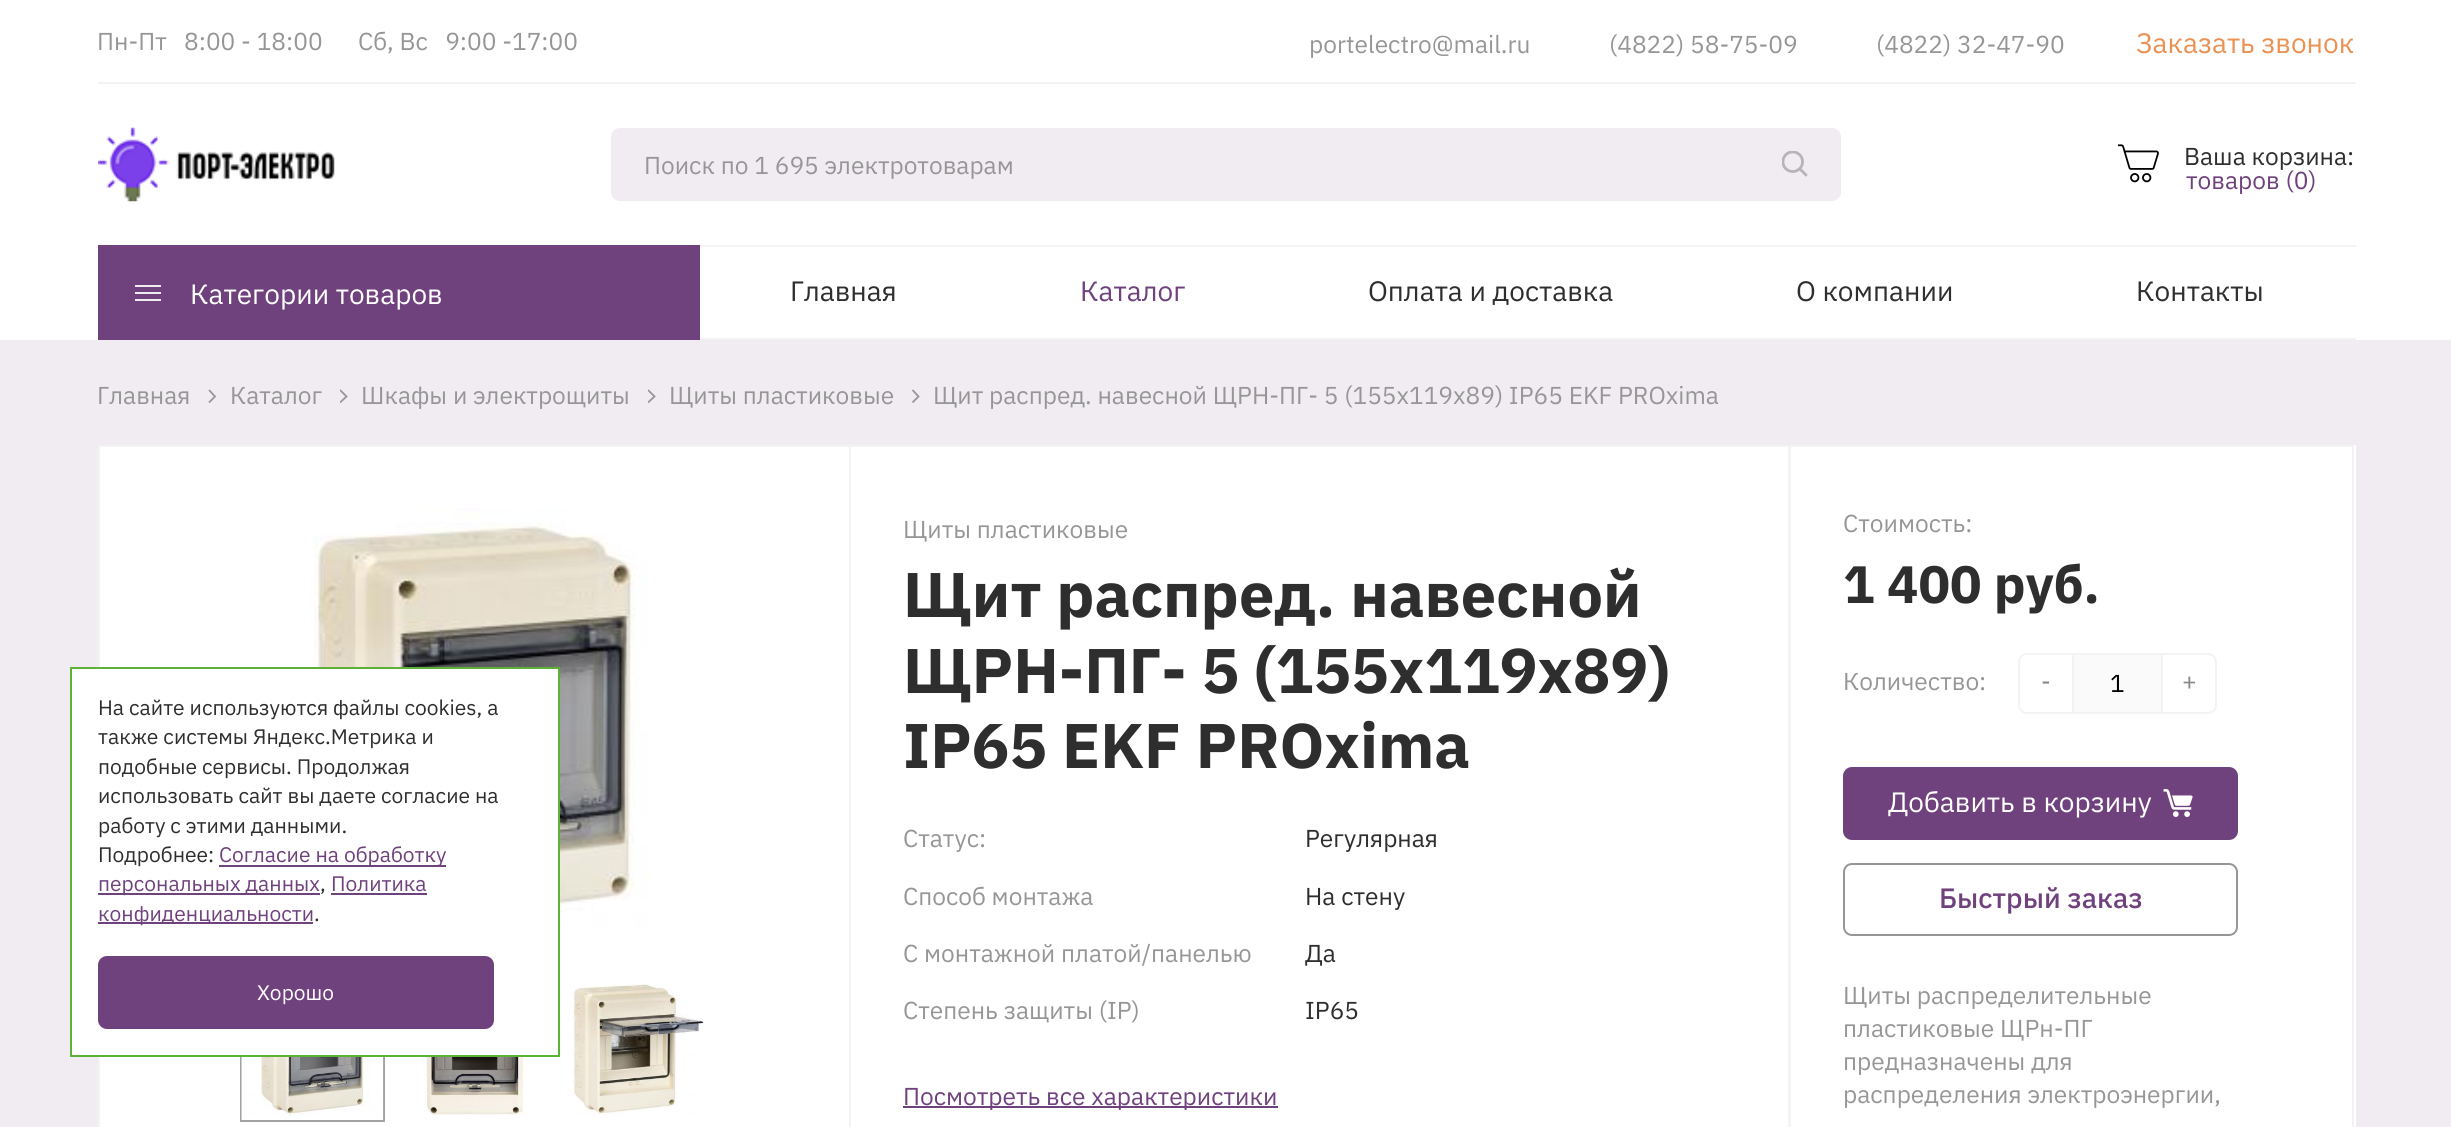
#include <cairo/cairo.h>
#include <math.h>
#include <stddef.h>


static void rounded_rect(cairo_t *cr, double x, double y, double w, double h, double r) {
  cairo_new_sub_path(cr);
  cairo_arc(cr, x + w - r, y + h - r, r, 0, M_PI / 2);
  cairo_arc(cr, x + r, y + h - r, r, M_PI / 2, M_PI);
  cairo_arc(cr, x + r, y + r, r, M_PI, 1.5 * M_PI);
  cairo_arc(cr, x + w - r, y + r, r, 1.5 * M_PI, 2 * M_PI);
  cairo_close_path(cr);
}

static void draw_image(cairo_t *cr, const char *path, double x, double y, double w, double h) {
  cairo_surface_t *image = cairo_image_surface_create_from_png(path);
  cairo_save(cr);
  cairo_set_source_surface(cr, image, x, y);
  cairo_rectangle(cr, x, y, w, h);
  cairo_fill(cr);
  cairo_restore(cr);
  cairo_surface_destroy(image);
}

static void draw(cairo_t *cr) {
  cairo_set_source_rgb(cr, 241 / 255.0, 236 / 255.0, 242 / 255.0);
  cairo_paint(cr);
  cairo_set_source_rgb(cr, 1, 1, 1);
  cairo_rectangle(cr, 0, 0, 2451, 340);
  cairo_fill(cr);
  cairo_set_source_rgb(cr, 243 / 255.0, 243 / 255.0, 243 / 255.0);
  cairo_rectangle(cr, 98, 82, 2258, 2);
  cairo_fill(cr);
  draw_image(cr, "images/1.png", 98, 127, 237, 75);
  cairo_set_source_rgb(cr, 241 / 255.0, 236 / 255.0, 242 / 255.0);
  rounded_rect(cr, 611, 128, 1230, 73, 9);
  cairo_fill(cr);
  draw_image(cr, "images/2.png", 1782, 151, 26, 26);
  draw_image(cr, "images/3.png", 2118, 144, 41, 39);
  cairo_set_source_rgb(cr, 111 / 255.0, 65 / 255.0, 125 / 255.0);
  cairo_rectangle(cr, 98, 245, 602, 95);
  cairo_fill(cr);
  cairo_new_path(cr);
  cairo_move_to(cr, 135, 286);
  cairo_line_to(cr, 161, 286);
  cairo_move_to(cr, 135, 293);
  cairo_line_to(cr, 161, 293);
  cairo_move_to(cr, 135, 300);
  cairo_line_to(cr, 161, 300);
  cairo_set_source_rgb(cr, 1, 1, 1);
  cairo_set_line_width(cr, 1.8);
  cairo_stroke(cr);
  cairo_set_source_rgb(cr, 243 / 255.0, 243 / 255.0, 243 / 255.0);
  cairo_rectangle(cr, 700, 245, 1656, 2);
  cairo_fill(cr);
  cairo_rectangle(cr, 700, 338, 1656, 2);
  cairo_fill(cr);
  cairo_new_path(cr);
  cairo_move_to(cr, 209, 390);
  cairo_line_to(cr, 215, 396.5);
  cairo_line_to(cr, 209, 402.5);
  cairo_set_source_rgb(cr, 150 / 255.0, 150 / 255.0, 150 / 255.0);
  cairo_stroke(cr);
  cairo_save(cr);
  cairo_rectangle(cr, 340, 389, 8, 15);
  cairo_clip(cr);
  cairo_new_path(cr);
  cairo_move_to(cr, 340, 390);
  cairo_line_to(cr, 346.5, 396.5);
  cairo_line_to(cr, 340, 402.5);
  cairo_stroke(cr);
  cairo_restore(cr);
  cairo_save(cr);
  cairo_rectangle(cr, 648, 389, 8, 15);
  cairo_clip(cr);
  cairo_new_path(cr);
  cairo_move_to(cr, 648, 390);
  cairo_line_to(cr, 654.5, 396.5);
  cairo_line_to(cr, 648, 402.5);
  cairo_stroke(cr);
  cairo_restore(cr);
  cairo_new_path(cr);
  cairo_move_to(cr, 912.5, 390);
  cairo_line_to(cr, 918.5, 396.5);
  cairo_line_to(cr, 912.5, 402.5);
  cairo_stroke(cr);
  cairo_set_source_rgb(cr, 1, 1, 1);
  cairo_rectangle(cr, 100, 445, 2256, 682);
  cairo_fill(cr);
  cairo_rectangle(cr, 99, 446, 751, 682);
  cairo_set_source_rgb(cr, 243 / 255.0, 243 / 255.0, 243 / 255.0);
  cairo_set_line_width(cr, 2);
  cairo_stroke(cr);
  draw_image(cr, "images/4.png", 313, 508, 336, 420);
  cairo_rectangle(cr, 241, 978, 143, 143);
  cairo_set_source_rgb(cr, 162 / 255.0, 162 / 255.0, 162 / 255.0);
  cairo_stroke(cr);
  draw_image(cr, "images/5.png", 241, 1057, 143, 63);
  draw_image(cr, "images/6.png", 423, 1057, 101, 58);
  draw_image(cr, "images/7.png", 572, 984, 132, 131);
  cairo_rectangle(cr, 850, 446, 939, 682);
  cairo_set_source_rgb(cr, 243 / 255.0, 243 / 255.0, 243 / 255.0);
  cairo_stroke(cr);
  cairo_set_source_rgb(cr, 111 / 255.0, 65 / 255.0, 125 / 255.0);
  cairo_rectangle(cr, 903, 1106, 375, 2);
  cairo_fill(cr);
  cairo_rectangle(cr, 1790, 446, 563, 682);
  cairo_set_source_rgb(cr, 243 / 255.0, 243 / 255.0, 243 / 255.0);
  cairo_stroke(cr);
  cairo_new_path(cr);
  cairo_move_to(cr, 2027, 654);
  cairo_line_to(cr, 2073, 654);
  cairo_line_to(cr, 2073, 713);
  cairo_line_to(cr, 2027, 713);
  cairo_curve_to(cr, 2022.5, 713, 2019, 709.5, 2019, 705);
  cairo_line_to(cr, 2019, 662);
  cairo_curve_to(cr, 2019, 657.5, 2022.5, 654, 2027, 654);
  cairo_close_path(cr);
  cairo_stroke(cr);
  cairo_set_source_rgb(cr, 250 / 255.0, 250 / 255.0, 250 / 255.0);
  cairo_rectangle(cr, 2074, 655, 87, 57);
  cairo_fill(cr);
  cairo_set_source_rgb(cr, 243 / 255.0, 243 / 255.0, 243 / 255.0);
  cairo_rectangle(cr, 2074, 653, 87, 2);
  cairo_fill(cr);
  cairo_rectangle(cr, 2074, 712, 87, 2);
  cairo_fill(cr);
  cairo_new_path(cr);
  cairo_move_to(cr, 2162, 654);
  cairo_line_to(cr, 2208, 654);
  cairo_curve_to(cr, 2212.5, 654, 2216, 657.5, 2216, 662);
  cairo_line_to(cr, 2216, 705);
  cairo_curve_to(cr, 2216, 709.5, 2212.5, 713, 2208, 713);
  cairo_line_to(cr, 2162, 713);
  cairo_close_path(cr);
  cairo_stroke(cr);
  cairo_set_source_rgb(cr, 111 / 255.0, 65 / 255.0, 125 / 255.0);
  rounded_rect(cr, 1843, 767, 395, 73, 9);
  cairo_fill(cr);
  draw_image(cr, "images/8.png", 2163, 789, 30, 28);
  rounded_rect(cr, 1844, 864, 393, 71, 8);
  cairo_set_source_rgb(cr, 150 / 255.0, 150 / 255.0, 150 / 255.0);
  cairo_stroke(cr);
  cairo_set_source_rgb(cr, 1, 1, 1);
  cairo_rectangle(cr, 71, 668, 488, 388);
  cairo_fill_preserve(cr);
  cairo_set_source_rgb(cr, 93 / 255.0, 177 / 255.0, 55 / 255.0);
  cairo_stroke(cr);
  cairo_set_source_rgb(cr, 111 / 255.0, 65 / 255.0, 125 / 255.0);
  cairo_rectangle(cr, 219, 865, 227, 2);
  cairo_fill(cr);
  cairo_rectangle(cr, 98, 893, 222, 2);
  cairo_fill(cr);
  cairo_rectangle(cr, 331, 893, 96, 2);
  cairo_fill(cr);
  cairo_rectangle(cr, 98, 922, 215, 2);
  cairo_fill(cr);
  rounded_rect(cr, 98, 956, 396, 73, 9);
  cairo_fill(cr);
  cairo_select_font_face(cr, "IBM Plex Sans", CAIRO_FONT_SLANT_NORMAL, CAIRO_FONT_WEIGHT_NORMAL);
  cairo_set_font_size(cr, 24.5);
  cairo_set_source_rgb(cr, 150 / 255.0, 150 / 255.0, 150 / 255.0);
  cairo_move_to(cr, 97, 50);
  cairo_show_text(cr, "Пн-Пт   8:00 - 18:00");
  cairo_move_to(cr, 358, 50);
  cairo_show_text(cr, "Cб, Вс   9:00 -17:00");
  cairo_move_to(cr, 1309, 53);
  cairo_show_text(cr, "portelectro@mail.ru");
  cairo_move_to(cr, 1609, 53);
  cairo_show_text(cr, "(4822) 58-75-09");
  cairo_move_to(cr, 1876, 53);
  cairo_show_text(cr, "(4822) 32-47-90");
  cairo_set_font_size(cr, 28);
  cairo_set_source_rgb(cr, 234 / 255.0, 145 / 255.0, 84 / 255.0);
  cairo_move_to(cr, 2136, 53);
  cairo_show_text(cr, "Заказать звонок");
  cairo_set_font_size(cr, 24.5);
  cairo_set_source_rgb(cr, 150 / 255.0, 150 / 255.0, 150 / 255.0);
  cairo_move_to(cr, 644, 174);
  cairo_show_text(cr, "Поиск по 1 695 электротоварам");
  cairo_set_source_rgb(cr, 46 / 255.0, 46 / 255.0, 46 / 255.0);
  cairo_move_to(cr, 2184, 165);
  cairo_show_text(cr, "Ваша корзина:");
  cairo_set_source_rgb(cr, 111 / 255.0, 65 / 255.0, 125 / 255.0);
  cairo_move_to(cr, 2186, 189);
  cairo_show_text(cr, "товаров (0)");
  cairo_set_font_size(cr, 28);
  cairo_set_source_rgb(cr, 1, 1, 1);
  cairo_move_to(cr, 190, 304);
  cairo_show_text(cr, "Категории товаров");
  cairo_set_source_rgb(cr, 46 / 255.0, 46 / 255.0, 46 / 255.0);
  cairo_move_to(cr, 790, 301);
  cairo_show_text(cr, "Главная");
  cairo_set_source_rgb(cr, 111 / 255.0, 65 / 255.0, 125 / 255.0);
  cairo_move_to(cr, 1080, 301);
  cairo_show_text(cr, "Каталог");
  cairo_set_source_rgb(cr, 46 / 255.0, 46 / 255.0, 46 / 255.0);
  cairo_move_to(cr, 1368, 301);
  cairo_show_text(cr, "Оплата и доставка");
  cairo_move_to(cr, 1796, 301);
  cairo_show_text(cr, "О компании");
  cairo_move_to(cr, 2136, 301);
  cairo_show_text(cr, "Контакты");
  cairo_set_font_size(cr, 24.5);
  cairo_set_source_rgb(cr, 150 / 255.0, 150 / 255.0, 150 / 255.0);
  cairo_move_to(cr, 97, 404);
  cairo_show_text(cr, "Главная");
  cairo_move_to(cr, 230, 404);
  cairo_show_text(cr, "Каталог");
  cairo_move_to(cr, 361, 404);
  cairo_show_text(cr, "Шкафы и электрощиты");
  cairo_move_to(cr, 669, 404);
  cairo_show_text(cr, "Щиты пластиковые");
  cairo_move_to(cr, 933, 404);
  cairo_show_text(cr, "Щит распред. навесной ЩРН-ПГ- 5 (155х119х89) IP65 EKF PROxima");
  cairo_move_to(cr, 903, 538);
  cairo_show_text(cr, "Щиты пластиковые");
  cairo_select_font_face(cr, "IBM Plex Sans", CAIRO_FONT_SLANT_NORMAL, CAIRO_FONT_WEIGHT_BOLD);
  cairo_set_font_size(cr, 63);
  cairo_set_source_rgb(cr, 46 / 255.0, 46 / 255.0, 46 / 255.0);
  cairo_move_to(cr, 903, 617);
  cairo_show_text(cr, "Щит распред. навесной");
  cairo_move_to(cr, 903, 693);
  cairo_show_text(cr, "ЩРН-ПГ- 5 (155х119х89)");
  cairo_move_to(cr, 903, 768);
  cairo_show_text(cr, "IP65 EKF PROxima");
  cairo_select_font_face(cr, "IBM Plex Sans", CAIRO_FONT_SLANT_NORMAL, CAIRO_FONT_WEIGHT_NORMAL);
  cairo_set_font_size(cr, 24.5);
  cairo_set_source_rgb(cr, 150 / 255.0, 150 / 255.0, 150 / 255.0);
  cairo_move_to(cr, 903, 847);
  cairo_show_text(cr, "Статус:");
  cairo_set_source_rgb(cr, 46 / 255.0, 46 / 255.0, 46 / 255.0);
  cairo_move_to(cr, 1305, 847);
  cairo_show_text(cr, "Регулярная");
  cairo_set_source_rgb(cr, 150 / 255.0, 150 / 255.0, 150 / 255.0);
  cairo_move_to(cr, 903, 905);
  cairo_show_text(cr, "Способ монтажа");
  cairo_set_source_rgb(cr, 46 / 255.0, 46 / 255.0, 46 / 255.0);
  cairo_move_to(cr, 1305, 905);
  cairo_show_text(cr, "На стену");
  cairo_set_source_rgb(cr, 150 / 255.0, 150 / 255.0, 150 / 255.0);
  cairo_move_to(cr, 903, 962);
  cairo_show_text(cr, "С монтажной платой/панелью");
  cairo_set_source_rgb(cr, 46 / 255.0, 46 / 255.0, 46 / 255.0);
  cairo_move_to(cr, 1305, 962);
  cairo_show_text(cr, "Да");
  cairo_set_source_rgb(cr, 150 / 255.0, 150 / 255.0, 150 / 255.0);
  cairo_move_to(cr, 903, 1019);
  cairo_show_text(cr, "Степень защиты (IP)");
  cairo_set_source_rgb(cr, 46 / 255.0, 46 / 255.0, 46 / 255.0);
  cairo_move_to(cr, 1305, 1019);
  cairo_show_text(cr, "IP65");
  cairo_set_source_rgb(cr, 111 / 255.0, 65 / 255.0, 125 / 255.0);
  cairo_move_to(cr, 903, 1105);
  cairo_show_text(cr, "Посмотреть все характеристики");
  cairo_set_source_rgb(cr, 150 / 255.0, 150 / 255.0, 150 / 255.0);
  cairo_move_to(cr, 1843, 532);
  cairo_show_text(cr, "Стоимость:");
  cairo_select_font_face(cr, "IBM Plex Sans", CAIRO_FONT_SLANT_NORMAL, CAIRO_FONT_WEIGHT_BOLD);
  cairo_set_font_size(cr, 52.5);
  cairo_set_source_rgb(cr, 46 / 255.0, 46 / 255.0, 46 / 255.0);
  cairo_move_to(cr, 1843, 603);
  cairo_show_text(cr, "1 400 руб.");
  cairo_select_font_face(cr, "IBM Plex Sans", CAIRO_FONT_SLANT_NORMAL, CAIRO_FONT_WEIGHT_NORMAL);
  cairo_set_font_size(cr, 24.5);
  cairo_set_source_rgb(cr, 150 / 255.0, 150 / 255.0, 150 / 255.0);
  cairo_move_to(cr, 1843, 690);
  cairo_show_text(cr, "Количество:");
  cairo_set_source_rgb(cr, 136 / 255.0, 136 / 255.0, 136 / 255.0);
  cairo_move_to(cr, 2041, 690);
  cairo_show_text(cr, "-");
  cairo_set_source_rgb(cr, 0, 0, 0);
  cairo_move_to(cr, 2110, 692);
  cairo_show_text(cr, "1");
  cairo_set_source_rgb(cr, 136 / 255.0, 136 / 255.0, 136 / 255.0);
  cairo_move_to(cr, 2182, 690);
  cairo_show_text(cr, "+");
  cairo_set_font_size(cr, 28);
  cairo_set_source_rgb(cr, 1, 1, 1);
  cairo_move_to(cr, 1888, 812);
  cairo_show_text(cr, "Добавить в корзину");
  cairo_select_font_face(cr, "IBM Plex Sans Medium", CAIRO_FONT_SLANT_NORMAL, CAIRO_FONT_WEIGHT_NORMAL);
  cairo_set_source_rgb(cr, 111 / 255.0, 65 / 255.0, 125 / 255.0);
  cairo_move_to(cr, 1939, 908);
  cairo_show_text(cr, "Быстрый заказ");
  cairo_select_font_face(cr, "IBM Plex Sans", CAIRO_FONT_SLANT_NORMAL, CAIRO_FONT_WEIGHT_NORMAL);
  cairo_set_font_size(cr, 24.5);
  cairo_set_source_rgb(cr, 150 / 255.0, 150 / 255.0, 150 / 255.0);
  cairo_move_to(cr, 1843, 1004);
  cairo_show_text(cr, "Щиты распределительные");
  cairo_move_to(cr, 1843, 1037);
  cairo_show_text(cr, "пластиковые ЩРн-ПГ");
  cairo_move_to(cr, 1843, 1070);
  cairo_show_text(cr, "предназначены для");
  cairo_move_to(cr, 1843, 1103);
  cairo_show_text(cr, "распределения электроэнергии,");
  cairo_set_font_size(cr, 21);
  cairo_set_source_rgb(cr, 46 / 255.0, 46 / 255.0, 46 / 255.0);
  cairo_move_to(cr, 98, 715);
  cairo_show_text(cr, "На сайте используются файлы cookies, а");
  cairo_move_to(cr, 98, 744);
  cairo_show_text(cr, "также системы Яндекс.Метрика и");
  cairo_move_to(cr, 98, 774);
  cairo_show_text(cr, "подобные сервисы. Продолжая");
  cairo_move_to(cr, 98, 803);
  cairo_show_text(cr, "использовать сайт вы даете согласие на");
  cairo_move_to(cr, 98, 833);
  cairo_show_text(cr, "работу с этими данными.");
  cairo_move_to(cr, 98, 862);
  cairo_show_text(cr, "Подробнее:");
  cairo_set_source_rgb(cr, 111 / 255.0, 65 / 255.0, 125 / 255.0);
  cairo_move_to(cr, 219, 862);
  cairo_show_text(cr, "Согласие на обработку");
  cairo_move_to(cr, 98, 891);
  cairo_show_text(cr, "персональных данных");
  cairo_set_source_rgb(cr, 46 / 255.0, 46 / 255.0, 46 / 255.0);
  cairo_move_to(cr, 320, 891);
  cairo_show_text(cr, ",");
  cairo_set_source_rgb(cr, 111 / 255.0, 65 / 255.0, 125 / 255.0);
  cairo_move_to(cr, 331, 891);
  cairo_show_text(cr, "Политика");
  cairo_move_to(cr, 98, 921);
  cairo_show_text(cr, "конфиденциальности");
  cairo_set_source_rgb(cr, 46 / 255.0, 46 / 255.0, 46 / 255.0);
  cairo_move_to(cr, 314, 921);
  cairo_show_text(cr, ".");
  cairo_set_source_rgb(cr, 1, 1, 1);
  cairo_move_to(cr, 257, 1000);
  cairo_show_text(cr, "Хорошо");
}

int main(void) {
  cairo_surface_t *surface = cairo_image_surface_create(CAIRO_FORMAT_RGB24, 2451, 1127);
  cairo_t *cr = cairo_create(surface);
  cairo_font_options_t *options = cairo_font_options_create();
  cairo_font_options_set_hint_metrics(options, CAIRO_HINT_METRICS_OFF);
  cairo_font_options_set_hint_style(options, CAIRO_HINT_STYLE_NONE);
  cairo_set_font_options(cr, options);
  cairo_set_miter_limit(cr, 4);
  draw(cr);
  cairo_surface_write_to_png(surface, "out.png");
  cairo_font_options_destroy(options);
  cairo_destroy(cr);
  cairo_surface_destroy(surface);
  return 0;
}
